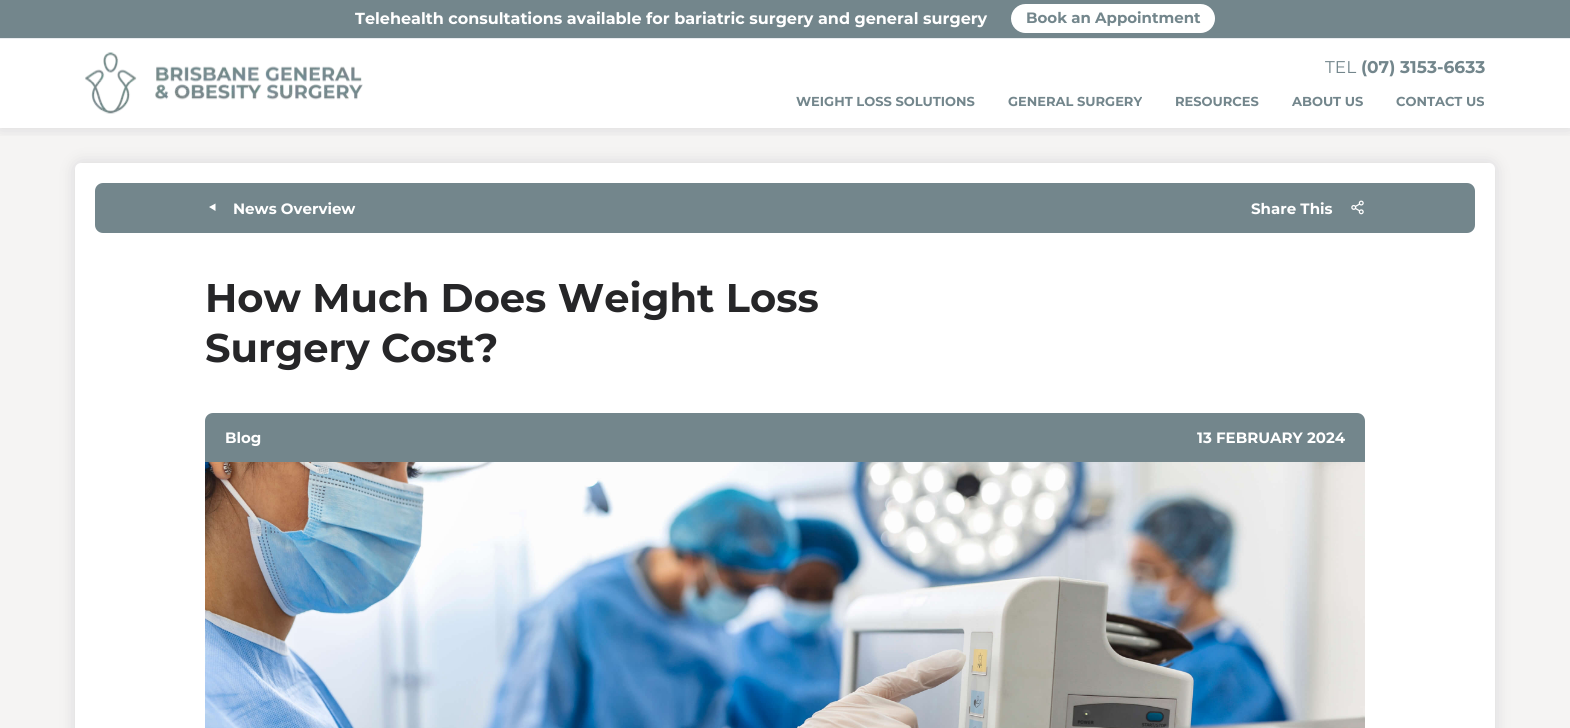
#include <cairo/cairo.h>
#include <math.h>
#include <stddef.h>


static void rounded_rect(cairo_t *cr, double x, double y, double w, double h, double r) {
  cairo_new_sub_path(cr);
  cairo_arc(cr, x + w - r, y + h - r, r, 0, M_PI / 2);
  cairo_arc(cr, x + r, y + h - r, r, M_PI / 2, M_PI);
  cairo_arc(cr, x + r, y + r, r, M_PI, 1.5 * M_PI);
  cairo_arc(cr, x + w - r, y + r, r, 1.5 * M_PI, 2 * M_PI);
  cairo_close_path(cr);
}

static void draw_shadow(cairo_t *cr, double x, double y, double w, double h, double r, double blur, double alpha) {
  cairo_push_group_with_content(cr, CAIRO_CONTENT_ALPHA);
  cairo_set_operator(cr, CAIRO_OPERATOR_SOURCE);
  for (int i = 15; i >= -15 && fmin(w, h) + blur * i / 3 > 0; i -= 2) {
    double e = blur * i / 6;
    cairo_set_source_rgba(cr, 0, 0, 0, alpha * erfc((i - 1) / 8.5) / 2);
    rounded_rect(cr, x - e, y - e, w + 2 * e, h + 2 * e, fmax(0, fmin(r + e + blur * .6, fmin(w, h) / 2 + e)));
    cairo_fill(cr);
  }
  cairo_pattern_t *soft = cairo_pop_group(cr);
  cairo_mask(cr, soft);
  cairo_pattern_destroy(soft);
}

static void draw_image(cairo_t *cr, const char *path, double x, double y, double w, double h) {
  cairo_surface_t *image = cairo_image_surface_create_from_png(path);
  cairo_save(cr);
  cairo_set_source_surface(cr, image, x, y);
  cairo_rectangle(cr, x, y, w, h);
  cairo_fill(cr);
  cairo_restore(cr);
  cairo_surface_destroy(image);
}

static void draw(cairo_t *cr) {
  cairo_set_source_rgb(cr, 245 / 255.0, 244 / 255.0, 243 / 255.0);
  cairo_paint(cr);
  cairo_set_source_rgb(cr, 1, 1, 1);
  cairo_rectangle(cr, 0, 39, 1570, 89);
  cairo_fill(cr);
  cairo_save(cr);
  cairo_rectangle(cr, 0, 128, 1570, 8);
  cairo_clip(cr);
  cairo_set_source_rgb(cr, 2 / 255.0, 6 / 255.0, 19 / 255.0);
  draw_shadow(cr, 0, 39, 1570, 89, 0, 8.5, 0.12);
  cairo_restore(cr);
  cairo_set_source_rgb(cr, 115 / 255.0, 134 / 255.0, 140 / 255.0);
  cairo_rectangle(cr, 0, 0, 1570, 38);
  cairo_fill(cr);
  cairo_set_source_rgb(cr, 233 / 255.0, 236 / 255.0, 239 / 255.0);
  cairo_rectangle(cr, 0, 38, 1570, 1);
  cairo_fill(cr);
  cairo_set_source_rgb(cr, 1, 1, 1);
  rounded_rect(cr, 1011, 4, 204, 29, 14.5);
  cairo_fill(cr);
  draw_image(cr, "images/1.png", 85, 52, 278, 62);
  cairo_set_source_rgb(cr, 2 / 255.0, 6 / 255.0, 19 / 255.0);
  draw_shadow(cr, 75, 163, 1420, 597, 6, 8.5, 0.12);
  cairo_set_source_rgb(cr, 1, 1, 1);
  rounded_rect(cr, 75, 163, 1420, 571, 6);
  cairo_fill(cr);
  cairo_set_source_rgb(cr, 115 / 255.0, 134 / 255.0, 140 / 255.0);
  rounded_rect(cr, 95, 183, 1380, 50, 8);
  cairo_fill(cr);
  cairo_set_source_rgb(cr, 1, 1, 1);
  cairo_new_path(cr);
  cairo_move_to(cr, 215.5, 203.5);
  cairo_line_to(cr, 215.5, 211);
  cairo_line_to(cr, 209, 207);
  cairo_close_path(cr);
  cairo_fill(cr);
  draw_image(cr, "images/2.png", 1351, 200, 13, 15);
  cairo_set_source_rgb(cr, 115 / 255.0, 134 / 255.0, 140 / 255.0);
  cairo_new_path(cr);
  cairo_move_to(cr, 213, 413);
  cairo_line_to(cr, 1357, 413);
  cairo_curve_to(cr, 1361.5, 413, 1365, 416.5, 1365, 421);
  cairo_line_to(cr, 1365, 462);
  cairo_line_to(cr, 205, 462);
  cairo_line_to(cr, 205, 421);
  cairo_curve_to(cr, 205, 416.5, 208.5, 413, 213, 413);
  cairo_close_path(cr);
  cairo_fill(cr);
  draw_image(cr, "images/3.png", 205, 462, 1160, 266);
  cairo_select_font_face(cr, "Montserrat", CAIRO_FONT_SLANT_NORMAL, CAIRO_FONT_WEIGHT_BOLD);
  cairo_set_font_size(cr, 16);
  cairo_set_source_rgb(cr, 1, 1, 1);
  cairo_move_to(cr, 355, 24);
  cairo_show_text(cr, "Telehealth consultations available for bariatric surgery and general surgery");
  cairo_set_font_size(cr, 15);
  cairo_set_source_rgb(cr, 115 / 255.0, 134 / 255.0, 140 / 255.0);
  cairo_move_to(cr, 1026, 23);
  cairo_show_text(cr, "Book an Appointment");
  cairo_select_font_face(cr, "Montserrat", CAIRO_FONT_SLANT_NORMAL, CAIRO_FONT_WEIGHT_NORMAL);
  cairo_set_font_size(cr, 17);
  cairo_move_to(cr, 1325, 73);
  cairo_show_text(cr, "TEL");
  cairo_select_font_face(cr, "Montserrat", CAIRO_FONT_SLANT_NORMAL, CAIRO_FONT_WEIGHT_BOLD);
  cairo_move_to(cr, 1361, 73);
  cairo_show_text(cr, "(07) 3153-6633");
  cairo_set_font_size(cr, 13);
  cairo_move_to(cr, 796, 106);
  cairo_show_text(cr, "WEIGHT LOSS SOLUTIONS");
  cairo_move_to(cr, 1008, 106);
  cairo_show_text(cr, "GENERAL SURGERY");
  cairo_move_to(cr, 1175, 106);
  cairo_show_text(cr, "RESOURCES");
  cairo_move_to(cr, 1292, 106);
  cairo_show_text(cr, "ABOUT US");
  cairo_move_to(cr, 1396, 106);
  cairo_show_text(cr, "CONTACT US");
  cairo_set_font_size(cr, 15);
  cairo_set_source_rgb(cr, 1, 1, 1);
  cairo_move_to(cr, 233, 214);
  cairo_show_text(cr, "News Overview");
  cairo_move_to(cr, 1251, 214);
  cairo_show_text(cr, "Share This");
  cairo_set_font_size(cr, 40);
  cairo_set_source_rgb(cr, 38 / 255.0, 38 / 255.0, 40 / 255.0);
  cairo_move_to(cr, 205, 312);
  cairo_show_text(cr, "How Much Does Weight Loss");
  cairo_move_to(cr, 205, 362);
  cairo_show_text(cr, "Surgery Cost?");
  cairo_set_font_size(cr, 15);
  cairo_set_source_rgb(cr, 1, 1, 1);
  cairo_move_to(cr, 225, 443);
  cairo_show_text(cr, "Blog");
  cairo_move_to(cr, 1197, 443);
  cairo_show_text(cr, "13 FEBRUARY 2024");
}

int main(void) {
  cairo_surface_t *surface = cairo_image_surface_create(CAIRO_FORMAT_RGB24, 1570, 728);
  cairo_t *cr = cairo_create(surface);
  cairo_font_options_t *options = cairo_font_options_create();
  cairo_font_options_set_hint_metrics(options, CAIRO_HINT_METRICS_OFF);
  cairo_font_options_set_hint_style(options, CAIRO_HINT_STYLE_NONE);
  cairo_set_font_options(cr, options);
  cairo_set_miter_limit(cr, 4);
  draw(cr);
  cairo_surface_write_to_png(surface, "out.png");
  cairo_font_options_destroy(options);
  cairo_destroy(cr);
  cairo_surface_destroy(surface);
  return 0;
}
